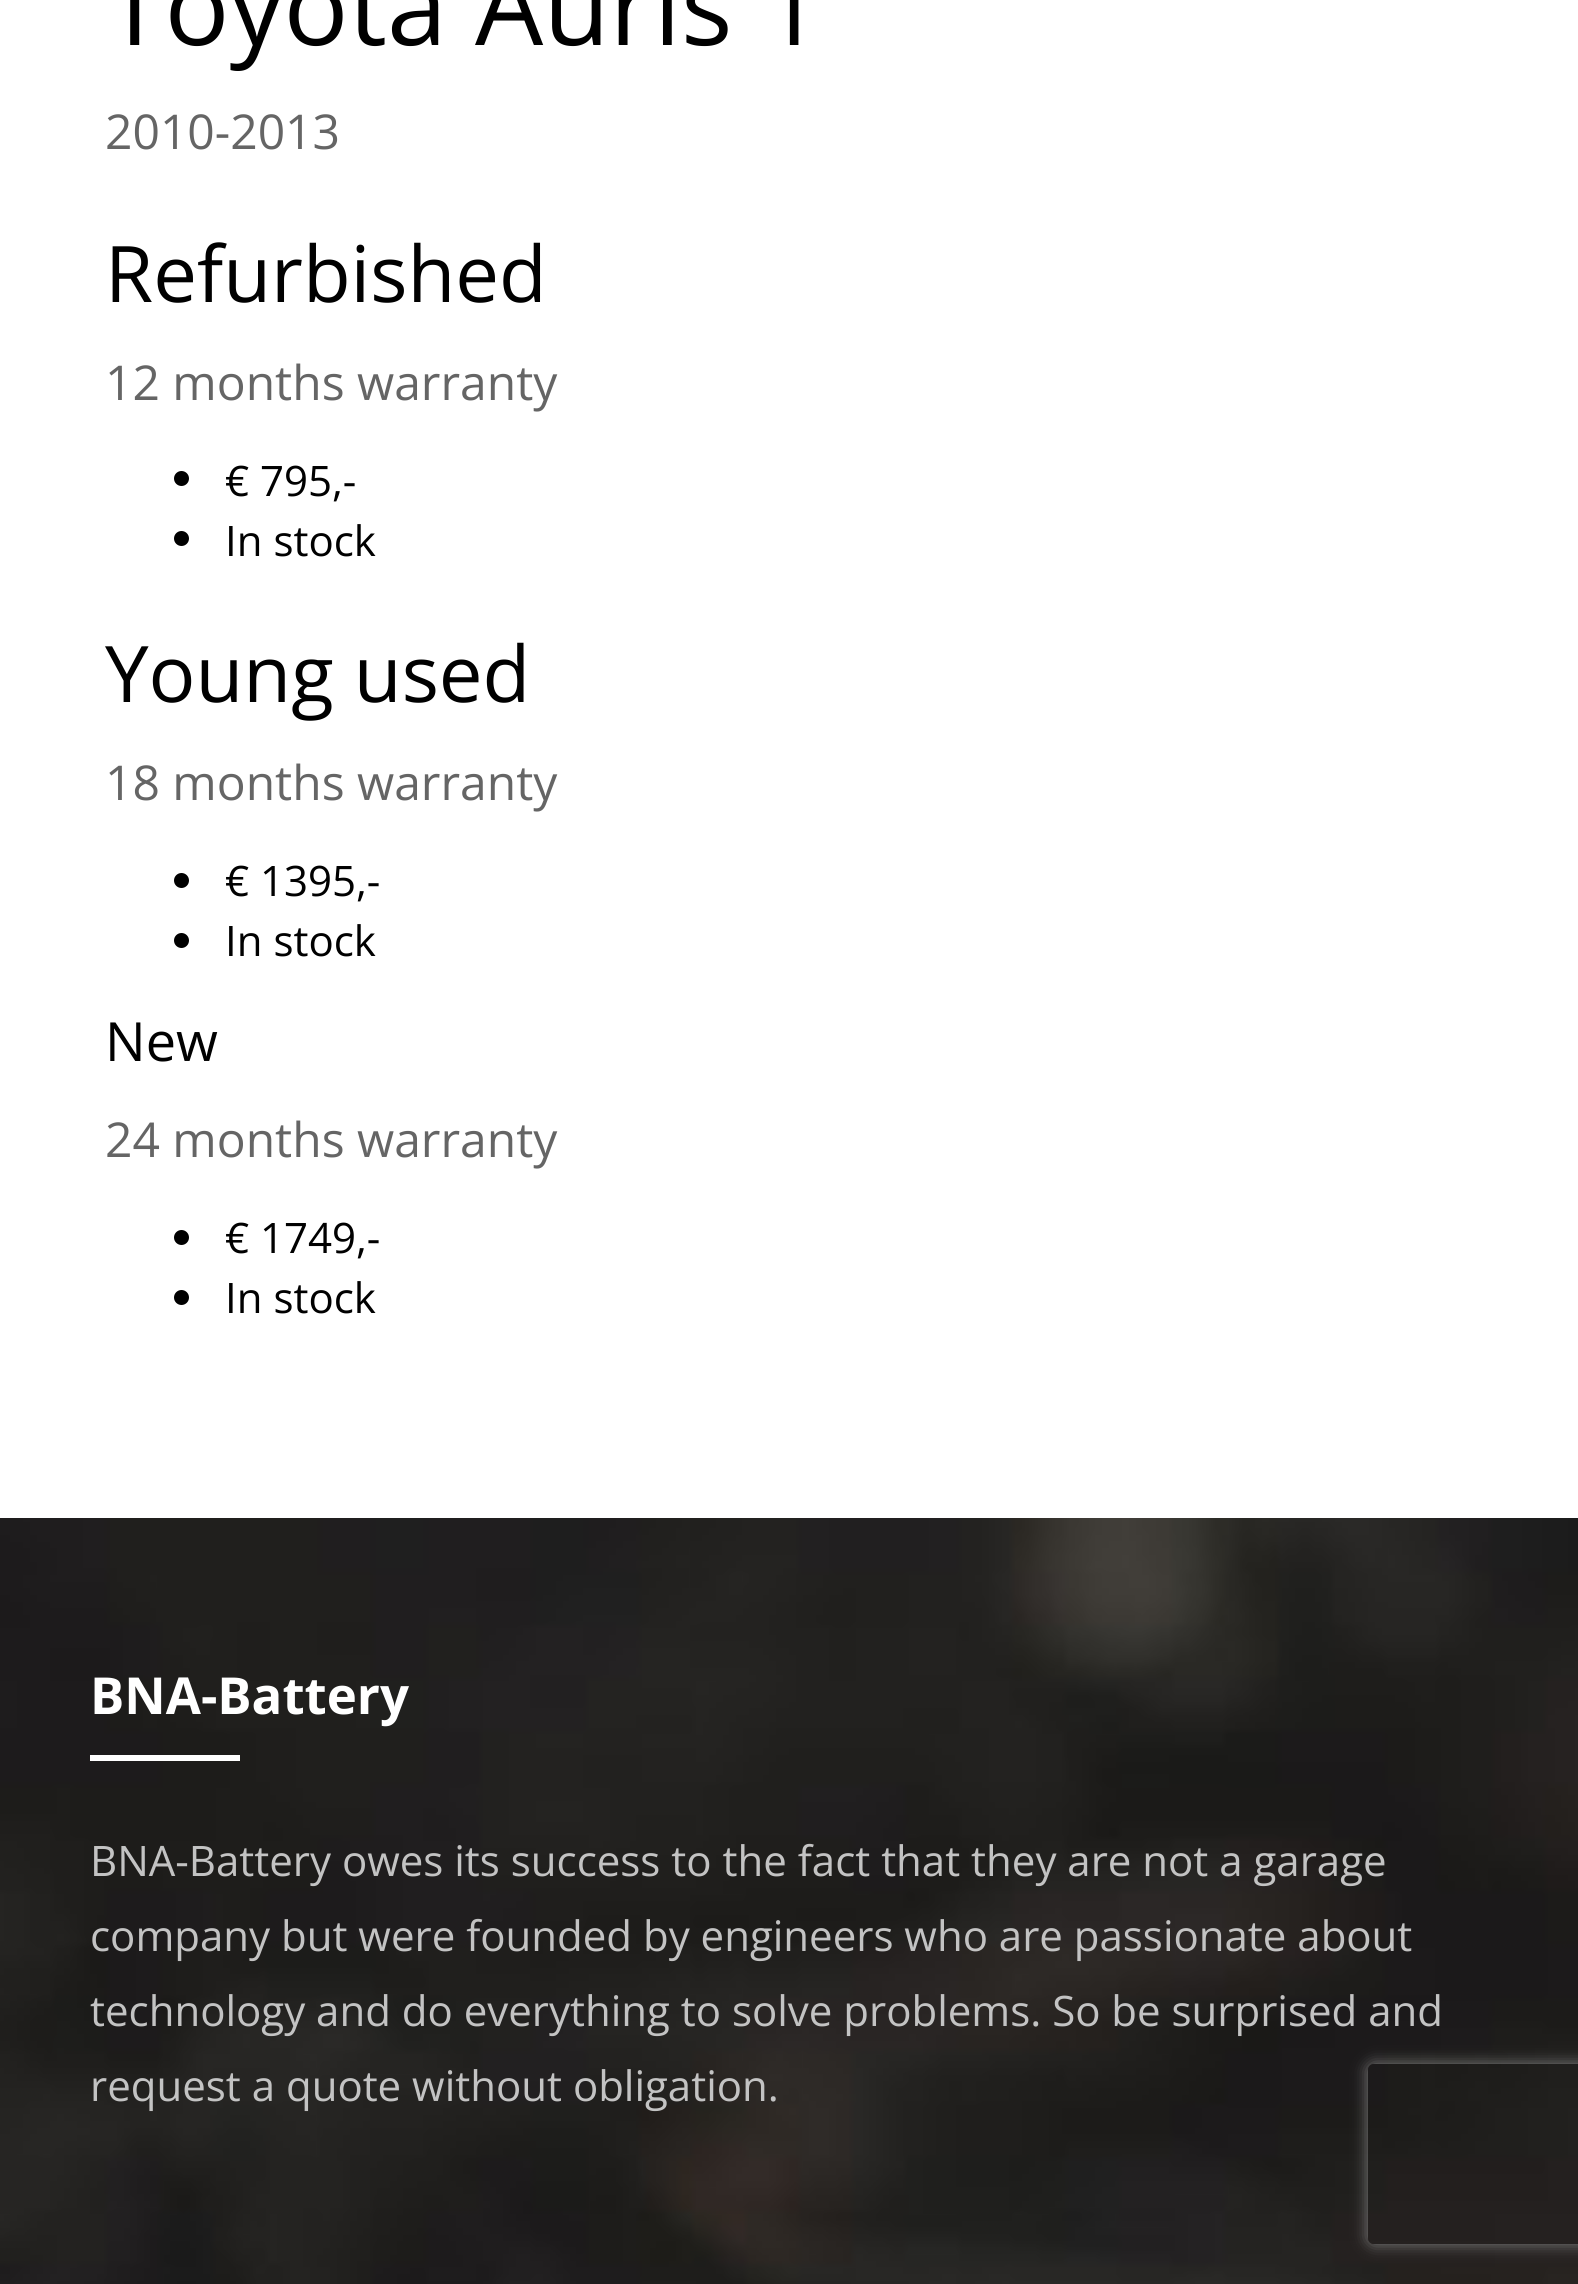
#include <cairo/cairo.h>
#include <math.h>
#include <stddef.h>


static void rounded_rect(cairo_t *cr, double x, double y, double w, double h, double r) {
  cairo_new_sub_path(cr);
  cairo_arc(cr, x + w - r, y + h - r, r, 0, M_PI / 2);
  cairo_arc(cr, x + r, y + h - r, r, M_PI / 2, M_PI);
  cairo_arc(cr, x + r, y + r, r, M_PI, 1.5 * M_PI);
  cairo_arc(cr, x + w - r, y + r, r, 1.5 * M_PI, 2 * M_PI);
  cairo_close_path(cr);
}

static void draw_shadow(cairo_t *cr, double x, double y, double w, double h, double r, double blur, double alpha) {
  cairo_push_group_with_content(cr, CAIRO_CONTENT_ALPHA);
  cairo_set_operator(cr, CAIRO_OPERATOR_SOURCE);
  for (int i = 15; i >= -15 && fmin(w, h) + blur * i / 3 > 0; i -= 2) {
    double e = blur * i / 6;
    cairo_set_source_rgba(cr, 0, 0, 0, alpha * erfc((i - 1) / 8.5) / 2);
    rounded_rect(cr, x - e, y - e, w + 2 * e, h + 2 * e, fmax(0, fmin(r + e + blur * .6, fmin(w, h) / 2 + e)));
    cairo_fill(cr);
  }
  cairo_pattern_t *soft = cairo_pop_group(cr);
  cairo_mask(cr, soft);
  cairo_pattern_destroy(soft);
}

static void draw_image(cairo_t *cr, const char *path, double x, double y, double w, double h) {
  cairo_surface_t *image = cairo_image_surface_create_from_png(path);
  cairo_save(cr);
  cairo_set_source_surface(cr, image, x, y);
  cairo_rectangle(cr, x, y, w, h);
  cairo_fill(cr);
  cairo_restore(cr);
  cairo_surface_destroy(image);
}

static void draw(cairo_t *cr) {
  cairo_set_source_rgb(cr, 1, 1, 1);
  cairo_paint(cr);
  cairo_set_source_rgb(cr, 0, 0, 0);
  cairo_arc(cr, 181.5, 478.5, 7.5, 0, 2 * M_PI);
  cairo_fill(cr);
  cairo_arc(cr, 181.5, 538.5, 7.5, 0, 2 * M_PI);
  cairo_fill(cr);
  cairo_arc(cr, 181.5, 880.5, 7.5, 0, 2 * M_PI);
  cairo_fill(cr);
  cairo_arc(cr, 181.5, 940.5, 7.5, 0, 2 * M_PI);
  cairo_fill(cr);
  cairo_arc(cr, 181.5, 1237.5, 7.5, 0, 2 * M_PI);
  cairo_fill(cr);
  cairo_arc(cr, 181.5, 1297.5, 7.5, 0, 2 * M_PI);
  cairo_fill(cr);
  draw_image(cr, "images/1.png", 0, 1518, 1578, 766);
  cairo_set_source_rgb(cr, 1, 1, 1);
  cairo_rectangle(cr, 90, 1755, 150, 6);
  cairo_fill(cr);
  cairo_save(cr);
  cairo_set_fill_rule(cr, CAIRO_FILL_RULE_EVEN_ODD);
  cairo_new_path(cr);
  cairo_move_to(cr, 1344, 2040);
  cairo_line_to(cr, 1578, 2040);
  cairo_line_to(cr, 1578, 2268);
  cairo_line_to(cr, 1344, 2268);
  cairo_close_path(cr);
  cairo_move_to(cr, 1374, 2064);
  cairo_line_to(cr, 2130, 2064);
  cairo_curve_to(cr, 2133.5, 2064, 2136, 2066.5, 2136, 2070);
  cairo_line_to(cr, 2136, 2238);
  cairo_curve_to(cr, 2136, 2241.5, 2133.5, 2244, 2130, 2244);
  cairo_line_to(cr, 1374, 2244);
  cairo_curve_to(cr, 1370.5, 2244, 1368, 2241.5, 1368, 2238);
  cairo_line_to(cr, 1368, 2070);
  cairo_curve_to(cr, 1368, 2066.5, 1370.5, 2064, 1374, 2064);
  cairo_close_path(cr);
  cairo_clip(cr);
  cairo_set_source_rgb(cr, 128 / 255.0, 128 / 255.0, 128 / 255.0);
  draw_shadow(cr, 1368, 2064, 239, 180, 6, 7.5, 1);
  cairo_restore(cr);
  cairo_select_font_face(cr, "Open Sans", CAIRO_FONT_SLANT_NORMAL, CAIRO_FONT_WEIGHT_NORMAL);
  cairo_set_font_size(cr, 108);
  cairo_set_source_rgb(cr, 0, 0, 0);
  cairo_move_to(cr, 105, 45);
  cairo_show_text(cr, "Toyota Auris 1");
  cairo_set_font_size(cr, 48);
  cairo_set_source_rgb(cr, 101 / 255.0, 101 / 255.0, 101 / 255.0);
  cairo_move_to(cr, 105, 149);
  cairo_show_text(cr, "2010-2013");
  cairo_set_font_size(cr, 78);
  cairo_set_source_rgb(cr, 0, 0, 0);
  cairo_move_to(cr, 105, 302);
  cairo_show_text(cr, "Refurbished");
  cairo_set_font_size(cr, 48);
  cairo_set_source_rgb(cr, 101 / 255.0, 101 / 255.0, 101 / 255.0);
  cairo_move_to(cr, 105, 400);
  cairo_show_text(cr, "12 months warranty");
  cairo_set_font_size(cr, 42);
  cairo_set_source_rgb(cr, 0, 0, 0);
  cairo_move_to(cr, 225, 496);
  cairo_show_text(cr, "€ 795,-");
  cairo_move_to(cr, 225, 556);
  cairo_show_text(cr, "In stock");
  cairo_set_font_size(cr, 78);
  cairo_move_to(cr, 105, 702);
  cairo_show_text(cr, "Young used");
  cairo_set_font_size(cr, 48);
  cairo_set_source_rgb(cr, 101 / 255.0, 101 / 255.0, 101 / 255.0);
  cairo_move_to(cr, 105, 800);
  cairo_show_text(cr, "18 months warranty");
  cairo_set_font_size(cr, 42);
  cairo_set_source_rgb(cr, 0, 0, 0);
  cairo_move_to(cr, 225, 896);
  cairo_show_text(cr, "€ 1395,-");
  cairo_move_to(cr, 225, 956);
  cairo_show_text(cr, "In stock");
  cairo_set_font_size(cr, 54);
  cairo_move_to(cr, 105, 1061);
  cairo_show_text(cr, "New");
  cairo_set_font_size(cr, 48);
  cairo_set_source_rgb(cr, 101 / 255.0, 101 / 255.0, 101 / 255.0);
  cairo_move_to(cr, 105, 1157);
  cairo_show_text(cr, "24 months warranty");
  cairo_set_font_size(cr, 42);
  cairo_set_source_rgb(cr, 0, 0, 0);
  cairo_move_to(cr, 225, 1253);
  cairo_show_text(cr, "€ 1749,-");
  cairo_move_to(cr, 225, 1313);
  cairo_show_text(cr, "In stock");
  cairo_select_font_face(cr, "Open Sans", CAIRO_FONT_SLANT_NORMAL, CAIRO_FONT_WEIGHT_BOLD);
  cairo_set_font_size(cr, 51);
  cairo_set_source_rgb(cr, 1, 1, 1);
  cairo_move_to(cr, 90, 1714);
  cairo_show_text(cr, "BNA-Battery");
  cairo_select_font_face(cr, "Open Sans", CAIRO_FONT_SLANT_NORMAL, CAIRO_FONT_WEIGHT_NORMAL);
  cairo_set_font_size(cr, 42);
  cairo_set_source_rgb(cr, 195 / 255.0, 195 / 255.0, 195 / 255.0);
  cairo_move_to(cr, 90, 1876);
  cairo_show_text(cr, "BNA-Battery owes its success to the fact that they are not a garage");
  cairo_move_to(cr, 90, 1951);
  cairo_show_text(cr, "company but were founded by engineers who are passionate about");
  cairo_move_to(cr, 90, 2026);
  cairo_show_text(cr, "technology and do everything to solve problems. So be surprised and");
  cairo_move_to(cr, 90, 2101);
  cairo_show_text(cr, "request a quote without obligation.");
}

int main(void) {
  cairo_surface_t *surface = cairo_image_surface_create(CAIRO_FORMAT_RGB24, 1578, 2284);
  cairo_t *cr = cairo_create(surface);
  cairo_font_options_t *options = cairo_font_options_create();
  cairo_font_options_set_hint_metrics(options, CAIRO_HINT_METRICS_OFF);
  cairo_font_options_set_hint_style(options, CAIRO_HINT_STYLE_NONE);
  cairo_set_font_options(cr, options);
  cairo_set_miter_limit(cr, 4);
  draw(cr);
  cairo_surface_write_to_png(surface, "out.png");
  cairo_font_options_destroy(options);
  cairo_destroy(cr);
  cairo_surface_destroy(surface);
  return 0;
}
